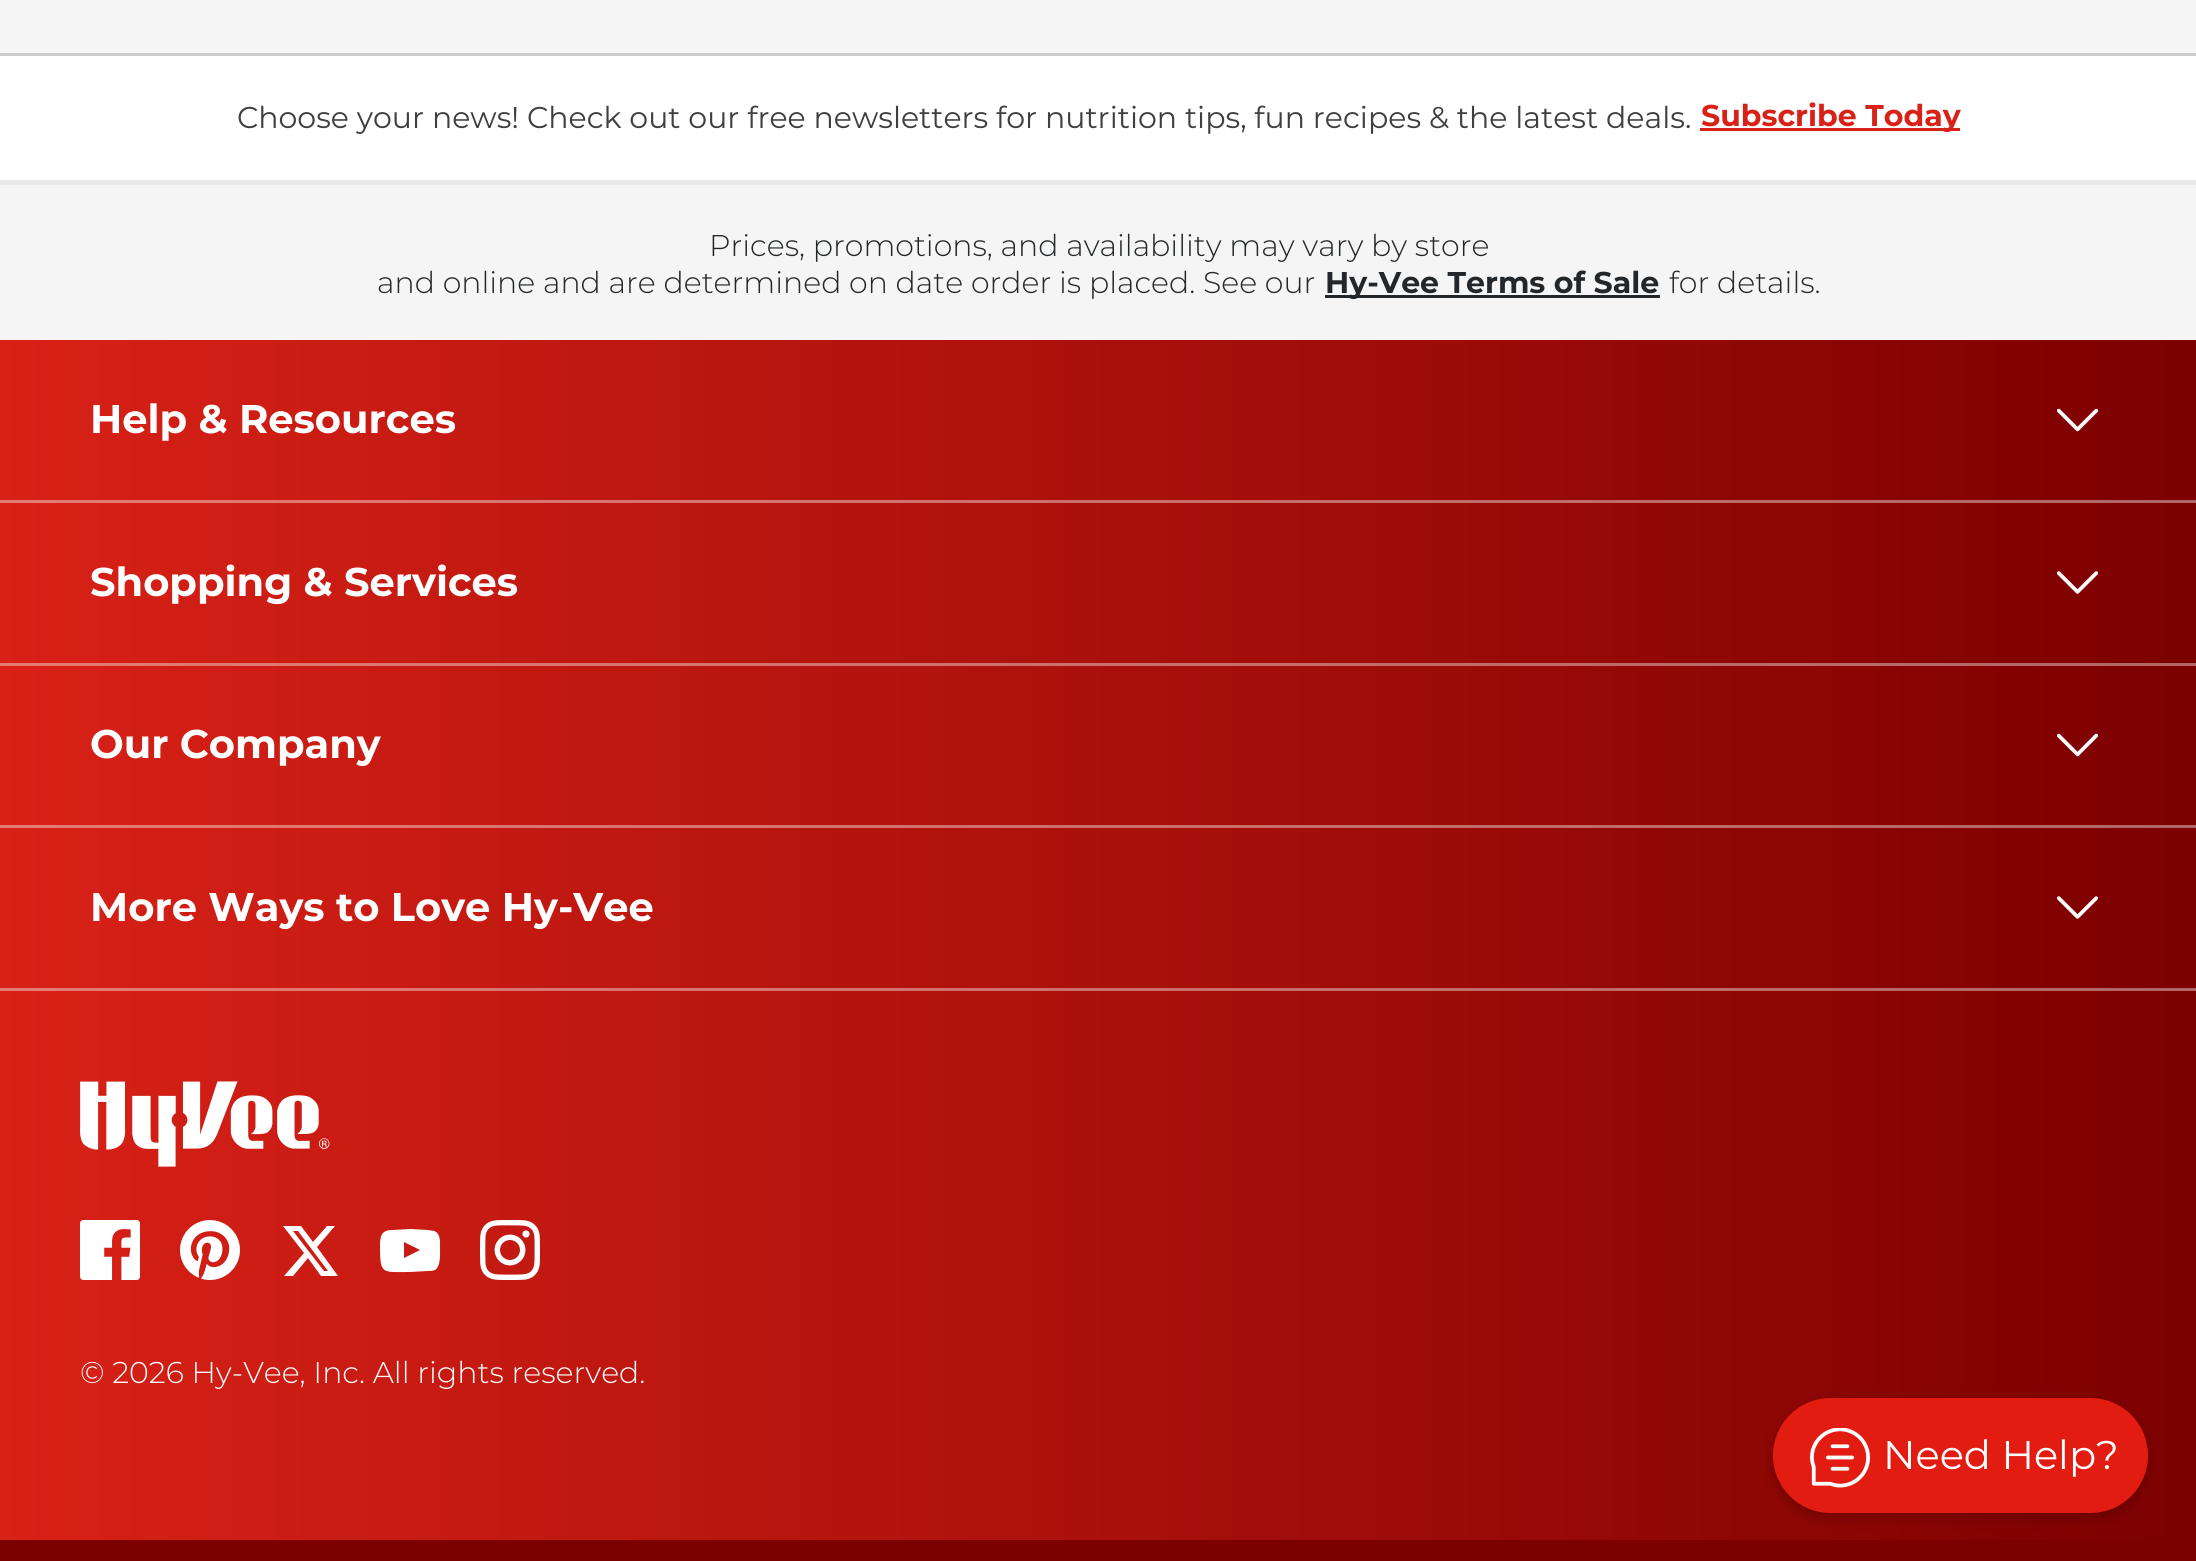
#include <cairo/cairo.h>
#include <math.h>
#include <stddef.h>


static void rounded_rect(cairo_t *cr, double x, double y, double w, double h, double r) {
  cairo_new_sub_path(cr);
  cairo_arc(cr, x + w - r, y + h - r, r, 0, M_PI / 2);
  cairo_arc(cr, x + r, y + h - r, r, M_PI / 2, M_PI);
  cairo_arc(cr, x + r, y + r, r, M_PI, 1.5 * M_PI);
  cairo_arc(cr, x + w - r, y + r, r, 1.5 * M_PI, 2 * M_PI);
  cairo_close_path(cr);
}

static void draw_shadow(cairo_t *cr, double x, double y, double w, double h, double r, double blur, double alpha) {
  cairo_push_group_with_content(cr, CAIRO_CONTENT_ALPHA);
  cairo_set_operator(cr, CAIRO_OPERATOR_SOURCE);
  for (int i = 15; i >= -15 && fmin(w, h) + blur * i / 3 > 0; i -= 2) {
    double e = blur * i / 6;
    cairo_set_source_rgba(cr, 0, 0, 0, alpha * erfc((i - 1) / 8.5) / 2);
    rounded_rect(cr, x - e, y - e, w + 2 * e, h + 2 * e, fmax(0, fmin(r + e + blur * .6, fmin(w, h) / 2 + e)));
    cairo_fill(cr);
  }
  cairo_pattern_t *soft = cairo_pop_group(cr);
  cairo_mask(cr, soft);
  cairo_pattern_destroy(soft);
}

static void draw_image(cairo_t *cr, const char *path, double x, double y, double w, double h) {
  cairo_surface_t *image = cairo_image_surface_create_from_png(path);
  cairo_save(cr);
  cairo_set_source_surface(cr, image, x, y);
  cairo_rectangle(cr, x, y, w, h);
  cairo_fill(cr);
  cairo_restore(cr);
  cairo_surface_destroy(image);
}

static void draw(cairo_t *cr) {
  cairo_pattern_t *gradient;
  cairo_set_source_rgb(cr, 245 / 255.0, 245 / 255.0, 245 / 255.0);
  cairo_paint(cr);
  gradient = cairo_pattern_create_linear(0, 883, 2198, 883);
  cairo_pattern_add_color_stop_rgba(gradient, 0, 216 / 255.0, 33 / 255.0, 23 / 255.0, 1);
  cairo_pattern_add_color_stop_rgba(gradient, 1, 124 / 255.0, 0, 0, 1);
  cairo_set_source(cr, gradient);
  cairo_pattern_destroy(gradient);
  cairo_rectangle(cr, 0, 340, 2196, 1200);
  cairo_fill(cr);
  gradient = cairo_pattern_create_linear(0, 883, 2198, 883);
  cairo_pattern_add_color_stop_rgba(gradient, 0, 232 / 255.0, 122 / 255.0, 116 / 255.0, 1);
  cairo_pattern_add_color_stop_rgba(gradient, 1, 176 / 255.0, 102 / 255.0, 102 / 255.0, 1);
  cairo_set_source(cr, gradient);
  cairo_pattern_destroy(gradient);
  cairo_rectangle(cr, 0, 988, 2196, 3);
  cairo_fill(cr);
  cairo_rectangle(cr, 0, 825, 2196, 3);
  cairo_fill(cr);
  cairo_rectangle(cr, 0, 663, 2196, 3);
  cairo_fill(cr);
  cairo_rectangle(cr, 0, 500, 2196, 3);
  cairo_fill(cr);
  cairo_set_source_rgb(cr, 1, 1, 1);
  cairo_rectangle(cr, 0, 56, 2196, 124);
  cairo_fill(cr);
  cairo_set_source_rgb(cr, 204 / 255.0, 204 / 255.0, 204 / 255.0);
  cairo_rectangle(cr, 0, 53, 2196, 3);
  cairo_fill(cr);
  cairo_set_source_rgb(cr, 216 / 255.0, 33 / 255.0, 23 / 255.0);
  cairo_rectangle(cr, 1700, 128, 260, 3);
  cairo_fill(cr);
  cairo_set_source_rgb(cr, 232 / 255.0, 232 / 255.0, 232 / 255.0);
  cairo_rectangle(cr, 0, 180, 2196, 5);
  cairo_fill(cr);
  cairo_set_source_rgb(cr, 36 / 255.0, 39 / 255.0, 41 / 255.0);
  cairo_rectangle(cr, 1325, 295, 335, 3);
  cairo_fill(cr);
  draw_image(cr, "images/1.png", 2056, 408, 43, 24);
  draw_image(cr, "images/2.png", 2056, 571, 43, 23);
  draw_image(cr, "images/1.png", 2056, 733, 43, 24);
  draw_image(cr, "images/2.png", 2056, 896, 43, 23);
  draw_image(cr, "images/3.png", 80, 1081, 250, 86);
  draw_image(cr, "images/4.png", 80, 1220, 60, 60);
  draw_image(cr, "images/5.png", 180, 1220, 60, 60);
  cairo_set_source_rgb(cr, 1, 1, 1);
  cairo_set_fill_rule(cr, CAIRO_FILL_RULE_EVEN_ODD);
  cairo_new_path(cr);
  cairo_move_to(cr, 327, 1226);
  cairo_line_to(cr, 335, 1226);
  cairo_line_to(cr, 317, 1247);
  cairo_line_to(cr, 338, 1276);
  cairo_line_to(cr, 321, 1276);
  cairo_line_to(cr, 308, 1258);
  cairo_line_to(cr, 293, 1276);
  cairo_line_to(cr, 284, 1276);
  cairo_line_to(cr, 304, 1253);
  cairo_line_to(cr, 283, 1226);
  cairo_line_to(cr, 301, 1226);
  cairo_line_to(cr, 313, 1242);
  cairo_close_path(cr);
  cairo_move_to(cr, 324, 1271);
  cairo_line_to(cr, 328, 1271);
  cairo_line_to(cr, 298, 1231);
  cairo_line_to(cr, 293, 1231);
  cairo_close_path(cr);
  cairo_fill(cr);
  cairo_new_path(cr);
  cairo_move_to(cr, 380, 1248);
  cairo_curve_to(cr, 380, 1238, 380, 1230, 392, 1230);
  cairo_line_to(cr, 410, 1229);
  cairo_line_to(cr, 428, 1230);
  cairo_line_to(cr, 434, 1231);
  cairo_curve_to(cr, 441, 1233, 440, 1243, 440, 1248);
  cairo_curve_to(cr, 440, 1254, 441, 1266, 435, 1270);
  cairo_curve_to(cr, 433, 1271, 430, 1271, 428, 1271);
  cairo_line_to(cr, 410, 1272);
  cairo_curve_to(cr, 383, 1272, 380, 1275, 380, 1248);
  cairo_close_path(cr);
  cairo_move_to(cr, 404, 1258);
  cairo_line_to(cr, 404, 1242);
  cairo_line_to(cr, 420, 1250);
  cairo_close_path(cr);
  cairo_fill(cr);
  draw_image(cr, "images/6.png", 480, 1220, 60, 60);
  cairo_set_source_rgb(cr, 124 / 255.0, 0, 0);
  cairo_rectangle(cr, 0, 1540, 2196, 21);
  cairo_fill(cr);
  cairo_set_source_rgb(cr, 0, 0, 0);
  draw_shadow(cr, 1773, 1403, 375, 115, 57.5, 6, 0.2);
  cairo_set_source_rgb(cr, 226 / 255.0, 28 / 255.0, 17 / 255.0);
  rounded_rect(cr, 1773, 1398, 375, 115, 57.5);
  cairo_fill(cr);
  draw_image(cr, "images/7.png", 1810, 1428, 60, 60);
  cairo_select_font_face(cr, "Montserrat", CAIRO_FONT_SLANT_NORMAL, CAIRO_FONT_WEIGHT_NORMAL);
  cairo_set_font_size(cr, 30);
  cairo_set_source_rgb(cr, 63 / 255.0, 63 / 255.0, 63 / 255.0);
  cairo_move_to(cr, 237, 128);
  cairo_show_text(cr, "Choose your news! Check out our free newsletters for nutrition tips, fun recipes & the latest deals.");
  cairo_select_font_face(cr, "Montserrat", CAIRO_FONT_SLANT_NORMAL, CAIRO_FONT_WEIGHT_BOLD);
  cairo_set_source_rgb(cr, 216 / 255.0, 33 / 255.0, 23 / 255.0);
  cairo_move_to(cr, 1701, 126);
  cairo_show_text(cr, "Subscribe Today");
  cairo_select_font_face(cr, "Montserrat Light", CAIRO_FONT_SLANT_NORMAL, CAIRO_FONT_WEIGHT_NORMAL);
  cairo_set_source_rgb(cr, 36 / 255.0, 39 / 255.0, 41 / 255.0);
  cairo_move_to(cr, 709, 256);
  cairo_show_text(cr, "Prices, promotions, and availability may vary by store");
  cairo_move_to(cr, 377, 293);
  cairo_show_text(cr, "and online and are determined on date order is placed. See our");
  cairo_select_font_face(cr, "Montserrat", CAIRO_FONT_SLANT_NORMAL, CAIRO_FONT_WEIGHT_BOLD);
  cairo_move_to(cr, 1325, 293);
  cairo_show_text(cr, "Hy-Vee Terms of Sale");
  cairo_select_font_face(cr, "Montserrat Light", CAIRO_FONT_SLANT_NORMAL, CAIRO_FONT_WEIGHT_NORMAL);
  cairo_move_to(cr, 1669, 293);
  cairo_show_text(cr, "for details.");
  cairo_select_font_face(cr, "Montserrat", CAIRO_FONT_SLANT_NORMAL, CAIRO_FONT_WEIGHT_BOLD);
  cairo_set_font_size(cr, 40);
  cairo_set_source_rgb(cr, 1, 1, 1);
  cairo_move_to(cr, 90, 433);
  cairo_show_text(cr, "Help & Resources");
  cairo_move_to(cr, 90, 596);
  cairo_show_text(cr, "Shopping & Services");
  cairo_move_to(cr, 90, 758);
  cairo_show_text(cr, "Our Company");
  cairo_move_to(cr, 90, 921);
  cairo_show_text(cr, "More Ways to Love Hy-Vee");
  cairo_select_font_face(cr, "Montserrat Light", CAIRO_FONT_SLANT_NORMAL, CAIRO_FONT_WEIGHT_NORMAL);
  cairo_set_font_size(cr, 30);
  cairo_move_to(cr, 80, 1383);
  cairo_show_text(cr, "© 2026 Hy-Vee, Inc. All rights reserved.");
  cairo_select_font_face(cr, "Montserrat", CAIRO_FONT_SLANT_NORMAL, CAIRO_FONT_WEIGHT_NORMAL);
  cairo_set_font_size(cr, 40);
  cairo_move_to(cr, 1883, 1469);
  cairo_show_text(cr, "Need Help?");
}

int main(void) {
  cairo_surface_t *surface = cairo_image_surface_create(CAIRO_FORMAT_RGB24, 2196, 1561);
  cairo_t *cr = cairo_create(surface);
  cairo_font_options_t *options = cairo_font_options_create();
  cairo_font_options_set_hint_metrics(options, CAIRO_HINT_METRICS_OFF);
  cairo_font_options_set_hint_style(options, CAIRO_HINT_STYLE_NONE);
  cairo_set_font_options(cr, options);
  cairo_set_miter_limit(cr, 4);
  draw(cr);
  cairo_surface_write_to_png(surface, "out.png");
  cairo_font_options_destroy(options);
  cairo_destroy(cr);
  cairo_surface_destroy(surface);
  return 0;
}
